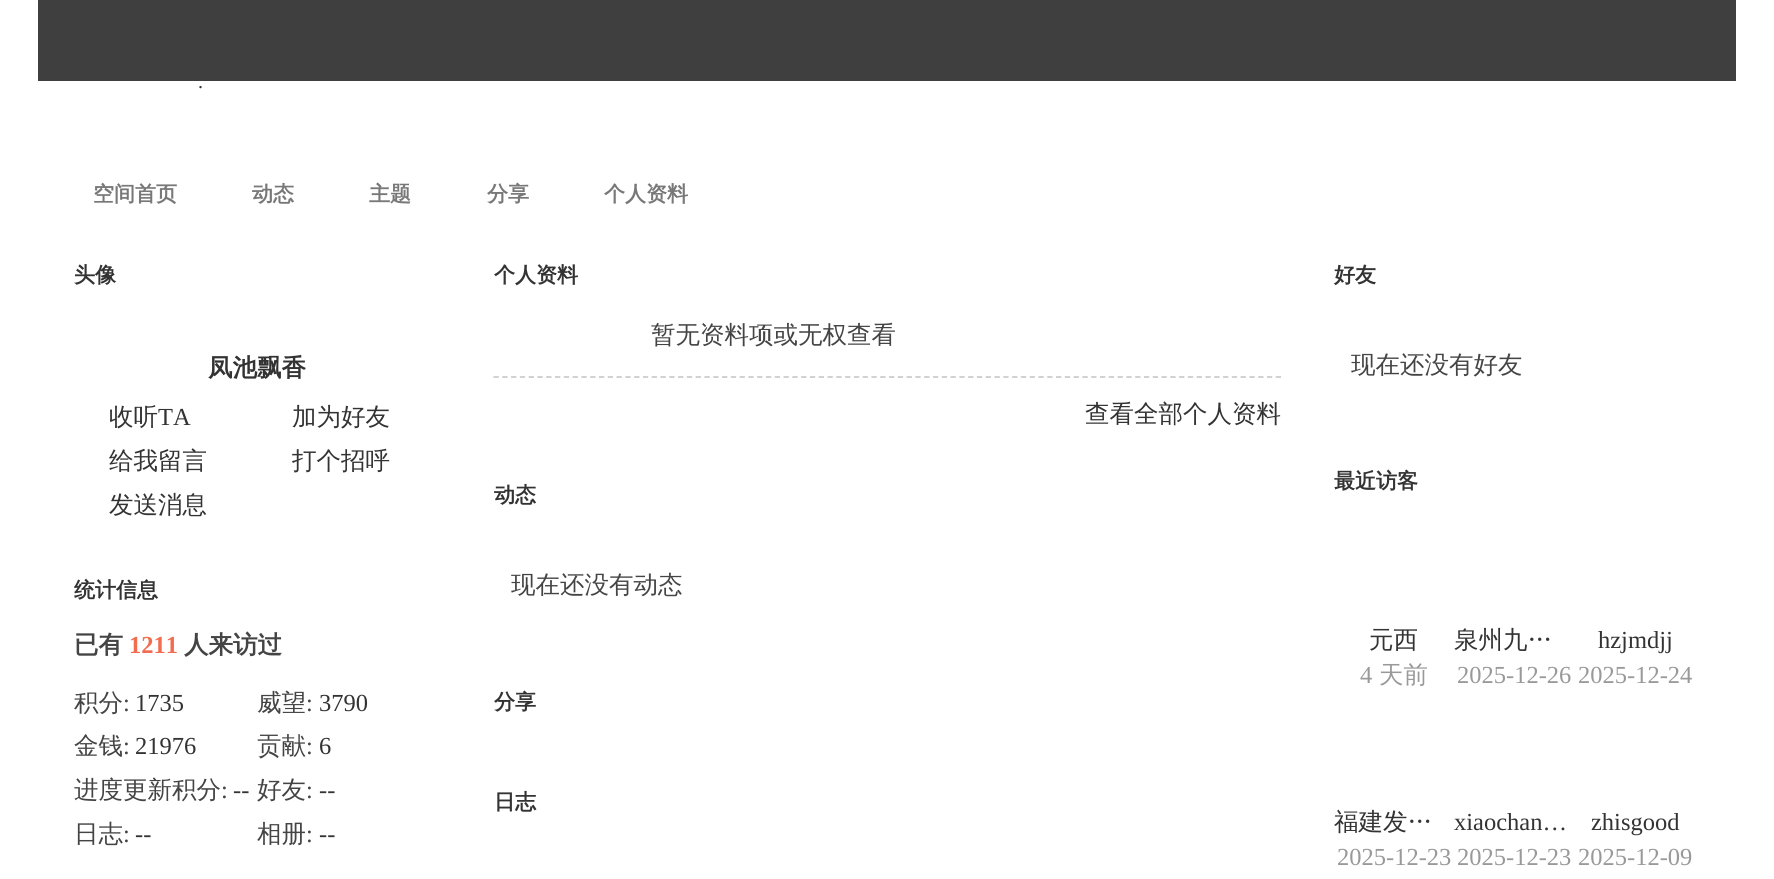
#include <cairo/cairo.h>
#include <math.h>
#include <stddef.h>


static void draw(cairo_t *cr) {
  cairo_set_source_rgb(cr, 1, 1, 1);
  cairo_paint(cr);
  cairo_set_source_rgb(cr, 63 / 255.0, 63 / 255.0, 63 / 255.0);
  cairo_rectangle(cr, 38, 0, 1698, 81);
  cairo_fill(cr);
  cairo_new_path(cr);
  cairo_move_to(cr, 493.5, 377);
  cairo_line_to(cr, 1281, 377);
  cairo_set_source_rgb(cr, 205 / 255.0, 205 / 255.0, 205 / 255.0);
  cairo_set_line_width(cr, 1.8);
  cairo_set_dash(cr, (double[]){5.25, 3.54}, 2, 0);
  cairo_stroke(cr);
  cairo_select_font_face(cr, "Liberation Serif", CAIRO_FONT_SLANT_NORMAL, CAIRO_FONT_WEIGHT_NORMAL);
  cairo_set_font_size(cr, 20);
  cairo_set_source_rgb(cr, 51 / 255.0, 51 / 255.0, 51 / 255.0);
  cairo_move_to(cr, 198, 88);
  cairo_show_text(cr, ".");
  cairo_select_font_face(cr, "WenQuanYi Zen Hei", CAIRO_FONT_SLANT_NORMAL, CAIRO_FONT_WEIGHT_BOLD);
  cairo_set_font_size(cr, 21);
  cairo_set_source_rgb(cr, 120 / 255.0, 120 / 255.0, 120 / 255.0);
  cairo_move_to(cr, 93, 201);
  cairo_show_text(cr, "空间首页");
  cairo_move_to(cr, 252, 201);
  cairo_show_text(cr, "动态");
  cairo_move_to(cr, 369, 201);
  cairo_show_text(cr, "主题");
  cairo_move_to(cr, 487, 201);
  cairo_show_text(cr, "分享");
  cairo_move_to(cr, 604, 201);
  cairo_show_text(cr, "个人资料");
  cairo_set_source_rgb(cr, 51 / 255.0, 51 / 255.0, 51 / 255.0);
  cairo_move_to(cr, 74, 282);
  cairo_show_text(cr, "头像");
  cairo_set_font_size(cr, 24.5);
  cairo_move_to(cr, 208, 376);
  cairo_show_text(cr, "凤池飘香");
  cairo_select_font_face(cr, "WenQuanYi Zen Hei Medium", CAIRO_FONT_SLANT_NORMAL, CAIRO_FONT_WEIGHT_NORMAL);
  cairo_move_to(cr, 109, 425);
  cairo_show_text(cr, "收听");
  cairo_select_font_face(cr, "Liberation Serif", CAIRO_FONT_SLANT_NORMAL, CAIRO_FONT_WEIGHT_NORMAL);
  cairo_move_to(cr, 158, 425);
  cairo_show_text(cr, "TA");
  cairo_select_font_face(cr, "WenQuanYi Zen Hei Medium", CAIRO_FONT_SLANT_NORMAL, CAIRO_FONT_WEIGHT_NORMAL);
  cairo_move_to(cr, 292, 425);
  cairo_show_text(cr, "加为好友");
  cairo_move_to(cr, 109, 469);
  cairo_show_text(cr, "给我留言");
  cairo_move_to(cr, 292, 469);
  cairo_show_text(cr, "打个招呼");
  cairo_move_to(cr, 109, 513);
  cairo_show_text(cr, "发送消息");
  cairo_select_font_face(cr, "WenQuanYi Zen Hei", CAIRO_FONT_SLANT_NORMAL, CAIRO_FONT_WEIGHT_BOLD);
  cairo_set_font_size(cr, 21);
  cairo_move_to(cr, 74, 597);
  cairo_show_text(cr, "统计信息");
  cairo_set_font_size(cr, 24.5);
  cairo_set_source_rgb(cr, 68 / 255.0, 68 / 255.0, 68 / 255.0);
  cairo_move_to(cr, 74, 653);
  cairo_show_text(cr, "已有");
  cairo_select_font_face(cr, "Liberation Serif", CAIRO_FONT_SLANT_NORMAL, CAIRO_FONT_WEIGHT_BOLD);
  cairo_set_source_rgb(cr, 242 / 255.0, 108 / 255.0, 79 / 255.0);
  cairo_move_to(cr, 129, 653);
  cairo_show_text(cr, "1211");
  cairo_select_font_face(cr, "WenQuanYi Zen Hei", CAIRO_FONT_SLANT_NORMAL, CAIRO_FONT_WEIGHT_BOLD);
  cairo_set_source_rgb(cr, 68 / 255.0, 68 / 255.0, 68 / 255.0);
  cairo_move_to(cr, 184, 653);
  cairo_show_text(cr, "人来访过");
  cairo_select_font_face(cr, "WenQuanYi Zen Hei Medium", CAIRO_FONT_SLANT_NORMAL, CAIRO_FONT_WEIGHT_NORMAL);
  cairo_move_to(cr, 74, 711);
  cairo_show_text(cr, "积分");
  cairo_select_font_face(cr, "Liberation Serif", CAIRO_FONT_SLANT_NORMAL, CAIRO_FONT_WEIGHT_NORMAL);
  cairo_move_to(cr, 123, 711);
  cairo_show_text(cr, ":");
  cairo_set_source_rgb(cr, 51 / 255.0, 51 / 255.0, 51 / 255.0);
  cairo_move_to(cr, 135, 711);
  cairo_show_text(cr, "1735");
  cairo_select_font_face(cr, "WenQuanYi Zen Hei Medium", CAIRO_FONT_SLANT_NORMAL, CAIRO_FONT_WEIGHT_NORMAL);
  cairo_set_source_rgb(cr, 68 / 255.0, 68 / 255.0, 68 / 255.0);
  cairo_move_to(cr, 257, 711);
  cairo_show_text(cr, "威望");
  cairo_select_font_face(cr, "Liberation Serif", CAIRO_FONT_SLANT_NORMAL, CAIRO_FONT_WEIGHT_NORMAL);
  cairo_move_to(cr, 306, 711);
  cairo_show_text(cr, ":");
  cairo_set_source_rgb(cr, 51 / 255.0, 51 / 255.0, 51 / 255.0);
  cairo_move_to(cr, 319, 711);
  cairo_show_text(cr, "3790");
  cairo_select_font_face(cr, "WenQuanYi Zen Hei Medium", CAIRO_FONT_SLANT_NORMAL, CAIRO_FONT_WEIGHT_NORMAL);
  cairo_set_source_rgb(cr, 68 / 255.0, 68 / 255.0, 68 / 255.0);
  cairo_move_to(cr, 74, 754);
  cairo_show_text(cr, "金钱");
  cairo_select_font_face(cr, "Liberation Serif", CAIRO_FONT_SLANT_NORMAL, CAIRO_FONT_WEIGHT_NORMAL);
  cairo_move_to(cr, 123, 754);
  cairo_show_text(cr, ":");
  cairo_set_source_rgb(cr, 51 / 255.0, 51 / 255.0, 51 / 255.0);
  cairo_move_to(cr, 135, 754);
  cairo_show_text(cr, "21976");
  cairo_select_font_face(cr, "WenQuanYi Zen Hei Medium", CAIRO_FONT_SLANT_NORMAL, CAIRO_FONT_WEIGHT_NORMAL);
  cairo_set_source_rgb(cr, 68 / 255.0, 68 / 255.0, 68 / 255.0);
  cairo_move_to(cr, 257, 754);
  cairo_show_text(cr, "贡献");
  cairo_select_font_face(cr, "Liberation Serif", CAIRO_FONT_SLANT_NORMAL, CAIRO_FONT_WEIGHT_NORMAL);
  cairo_move_to(cr, 306, 754);
  cairo_show_text(cr, ":");
  cairo_set_source_rgb(cr, 51 / 255.0, 51 / 255.0, 51 / 255.0);
  cairo_move_to(cr, 319, 754);
  cairo_show_text(cr, "6");
  cairo_select_font_face(cr, "WenQuanYi Zen Hei Medium", CAIRO_FONT_SLANT_NORMAL, CAIRO_FONT_WEIGHT_NORMAL);
  cairo_set_source_rgb(cr, 68 / 255.0, 68 / 255.0, 68 / 255.0);
  cairo_move_to(cr, 74, 798);
  cairo_show_text(cr, "进度更新积分");
  cairo_select_font_face(cr, "Liberation Serif", CAIRO_FONT_SLANT_NORMAL, CAIRO_FONT_WEIGHT_NORMAL);
  cairo_move_to(cr, 221, 798);
  cairo_show_text(cr, ":");
  cairo_set_source_rgb(cr, 51 / 255.0, 51 / 255.0, 51 / 255.0);
  cairo_move_to(cr, 233, 798);
  cairo_show_text(cr, "--");
  cairo_select_font_face(cr, "WenQuanYi Zen Hei Medium", CAIRO_FONT_SLANT_NORMAL, CAIRO_FONT_WEIGHT_NORMAL);
  cairo_set_source_rgb(cr, 68 / 255.0, 68 / 255.0, 68 / 255.0);
  cairo_move_to(cr, 257, 798);
  cairo_show_text(cr, "好友");
  cairo_select_font_face(cr, "Liberation Serif", CAIRO_FONT_SLANT_NORMAL, CAIRO_FONT_WEIGHT_NORMAL);
  cairo_move_to(cr, 306, 798);
  cairo_show_text(cr, ":");
  cairo_set_source_rgb(cr, 51 / 255.0, 51 / 255.0, 51 / 255.0);
  cairo_move_to(cr, 319, 798);
  cairo_show_text(cr, "--");
  cairo_select_font_face(cr, "WenQuanYi Zen Hei Medium", CAIRO_FONT_SLANT_NORMAL, CAIRO_FONT_WEIGHT_NORMAL);
  cairo_set_source_rgb(cr, 68 / 255.0, 68 / 255.0, 68 / 255.0);
  cairo_move_to(cr, 74, 842);
  cairo_show_text(cr, "日志");
  cairo_select_font_face(cr, "Liberation Serif", CAIRO_FONT_SLANT_NORMAL, CAIRO_FONT_WEIGHT_NORMAL);
  cairo_move_to(cr, 123, 842);
  cairo_show_text(cr, ":");
  cairo_set_source_rgb(cr, 51 / 255.0, 51 / 255.0, 51 / 255.0);
  cairo_move_to(cr, 135, 842);
  cairo_show_text(cr, "--");
  cairo_select_font_face(cr, "WenQuanYi Zen Hei Medium", CAIRO_FONT_SLANT_NORMAL, CAIRO_FONT_WEIGHT_NORMAL);
  cairo_set_source_rgb(cr, 68 / 255.0, 68 / 255.0, 68 / 255.0);
  cairo_move_to(cr, 257, 842);
  cairo_show_text(cr, "相册");
  cairo_select_font_face(cr, "Liberation Serif", CAIRO_FONT_SLANT_NORMAL, CAIRO_FONT_WEIGHT_NORMAL);
  cairo_move_to(cr, 306, 842);
  cairo_show_text(cr, ":");
  cairo_set_source_rgb(cr, 51 / 255.0, 51 / 255.0, 51 / 255.0);
  cairo_move_to(cr, 319, 842);
  cairo_show_text(cr, "--");
  cairo_select_font_face(cr, "WenQuanYi Zen Hei", CAIRO_FONT_SLANT_NORMAL, CAIRO_FONT_WEIGHT_BOLD);
  cairo_set_font_size(cr, 21);
  cairo_move_to(cr, 494, 282);
  cairo_show_text(cr, "个人资料");
  cairo_select_font_face(cr, "WenQuanYi Zen Hei Medium", CAIRO_FONT_SLANT_NORMAL, CAIRO_FONT_WEIGHT_NORMAL);
  cairo_set_font_size(cr, 24.5);
  cairo_set_source_rgb(cr, 68 / 255.0, 68 / 255.0, 68 / 255.0);
  cairo_move_to(cr, 651, 343);
  cairo_show_text(cr, "暂无资料项或无权查看");
  cairo_set_source_rgb(cr, 51 / 255.0, 51 / 255.0, 51 / 255.0);
  cairo_move_to(cr, 1085, 422);
  cairo_show_text(cr, "查看全部个人资料");
  cairo_select_font_face(cr, "WenQuanYi Zen Hei", CAIRO_FONT_SLANT_NORMAL, CAIRO_FONT_WEIGHT_BOLD);
  cairo_set_font_size(cr, 21);
  cairo_move_to(cr, 494, 502);
  cairo_show_text(cr, "动态");
  cairo_select_font_face(cr, "WenQuanYi Zen Hei Medium", CAIRO_FONT_SLANT_NORMAL, CAIRO_FONT_WEIGHT_NORMAL);
  cairo_set_font_size(cr, 24.5);
  cairo_set_source_rgb(cr, 68 / 255.0, 68 / 255.0, 68 / 255.0);
  cairo_move_to(cr, 511, 593);
  cairo_show_text(cr, "现在还没有动态");
  cairo_select_font_face(cr, "WenQuanYi Zen Hei", CAIRO_FONT_SLANT_NORMAL, CAIRO_FONT_WEIGHT_BOLD);
  cairo_set_font_size(cr, 21);
  cairo_set_source_rgb(cr, 51 / 255.0, 51 / 255.0, 51 / 255.0);
  cairo_move_to(cr, 494, 709);
  cairo_show_text(cr, "分享");
  cairo_move_to(cr, 494, 809);
  cairo_show_text(cr, "日志");
  cairo_move_to(cr, 1334, 282);
  cairo_show_text(cr, "好友");
  cairo_select_font_face(cr, "WenQuanYi Zen Hei Medium", CAIRO_FONT_SLANT_NORMAL, CAIRO_FONT_WEIGHT_NORMAL);
  cairo_set_font_size(cr, 24.5);
  cairo_set_source_rgb(cr, 68 / 255.0, 68 / 255.0, 68 / 255.0);
  cairo_move_to(cr, 1351, 373);
  cairo_show_text(cr, "现在还没有好友");
  cairo_select_font_face(cr, "WenQuanYi Zen Hei", CAIRO_FONT_SLANT_NORMAL, CAIRO_FONT_WEIGHT_BOLD);
  cairo_set_font_size(cr, 21);
  cairo_set_source_rgb(cr, 51 / 255.0, 51 / 255.0, 51 / 255.0);
  cairo_move_to(cr, 1334, 488);
  cairo_show_text(cr, "最近访客");
  cairo_select_font_face(cr, "WenQuanYi Zen Hei Medium", CAIRO_FONT_SLANT_NORMAL, CAIRO_FONT_WEIGHT_NORMAL);
  cairo_set_font_size(cr, 24.5);
  cairo_move_to(cr, 1369, 648);
  cairo_show_text(cr, "元西");
  cairo_select_font_face(cr, "Liberation Serif", CAIRO_FONT_SLANT_NORMAL, CAIRO_FONT_WEIGHT_NORMAL);
  cairo_set_source_rgb(cr, 153 / 255.0, 153 / 255.0, 153 / 255.0);
  cairo_move_to(cr, 1360, 683);
  cairo_show_text(cr, "4");
  cairo_select_font_face(cr, "WenQuanYi Zen Hei Medium", CAIRO_FONT_SLANT_NORMAL, CAIRO_FONT_WEIGHT_NORMAL);
  cairo_move_to(cr, 1379, 683);
  cairo_show_text(cr, "天前");
  cairo_set_source_rgb(cr, 51 / 255.0, 51 / 255.0, 51 / 255.0);
  cairo_move_to(cr, 1454, 648);
  cairo_show_text(cr, "泉州九…");
  cairo_select_font_face(cr, "Liberation Serif", CAIRO_FONT_SLANT_NORMAL, CAIRO_FONT_WEIGHT_NORMAL);
  cairo_set_source_rgb(cr, 153 / 255.0, 153 / 255.0, 153 / 255.0);
  cairo_move_to(cr, 1457, 683);
  cairo_show_text(cr, "2025-12-26");
  cairo_set_source_rgb(cr, 51 / 255.0, 51 / 255.0, 51 / 255.0);
  cairo_move_to(cr, 1598, 648);
  cairo_show_text(cr, "hzjmdjj");
  cairo_set_source_rgb(cr, 153 / 255.0, 153 / 255.0, 153 / 255.0);
  cairo_move_to(cr, 1578, 683);
  cairo_show_text(cr, "2025-12-24");
  cairo_select_font_face(cr, "WenQuanYi Zen Hei Medium", CAIRO_FONT_SLANT_NORMAL, CAIRO_FONT_WEIGHT_NORMAL);
  cairo_set_source_rgb(cr, 51 / 255.0, 51 / 255.0, 51 / 255.0);
  cairo_move_to(cr, 1334, 830);
  cairo_show_text(cr, "福建发…");
  cairo_select_font_face(cr, "Liberation Serif", CAIRO_FONT_SLANT_NORMAL, CAIRO_FONT_WEIGHT_NORMAL);
  cairo_set_source_rgb(cr, 153 / 255.0, 153 / 255.0, 153 / 255.0);
  cairo_move_to(cr, 1337, 865);
  cairo_show_text(cr, "2025-12-23");
  cairo_set_source_rgb(cr, 51 / 255.0, 51 / 255.0, 51 / 255.0);
  cairo_move_to(cr, 1454, 830);
  cairo_show_text(cr, "xiaochan…");
  cairo_set_source_rgb(cr, 153 / 255.0, 153 / 255.0, 153 / 255.0);
  cairo_move_to(cr, 1457, 865);
  cairo_show_text(cr, "2025-12-23");
  cairo_set_source_rgb(cr, 51 / 255.0, 51 / 255.0, 51 / 255.0);
  cairo_move_to(cr, 1591, 830);
  cairo_show_text(cr, "zhisgood");
  cairo_set_source_rgb(cr, 153 / 255.0, 153 / 255.0, 153 / 255.0);
  cairo_move_to(cr, 1578, 865);
  cairo_show_text(cr, "2025-12-09");
}

int main(void) {
  cairo_surface_t *surface = cairo_image_surface_create(CAIRO_FORMAT_RGB24, 1774, 879);
  cairo_t *cr = cairo_create(surface);
  cairo_font_options_t *options = cairo_font_options_create();
  cairo_font_options_set_hint_metrics(options, CAIRO_HINT_METRICS_OFF);
  cairo_font_options_set_hint_style(options, CAIRO_HINT_STYLE_NONE);
  cairo_set_font_options(cr, options);
  cairo_set_miter_limit(cr, 4);
  draw(cr);
  cairo_surface_write_to_png(surface, "out.png");
  cairo_font_options_destroy(options);
  cairo_destroy(cr);
  cairo_surface_destroy(surface);
  return 0;
}
